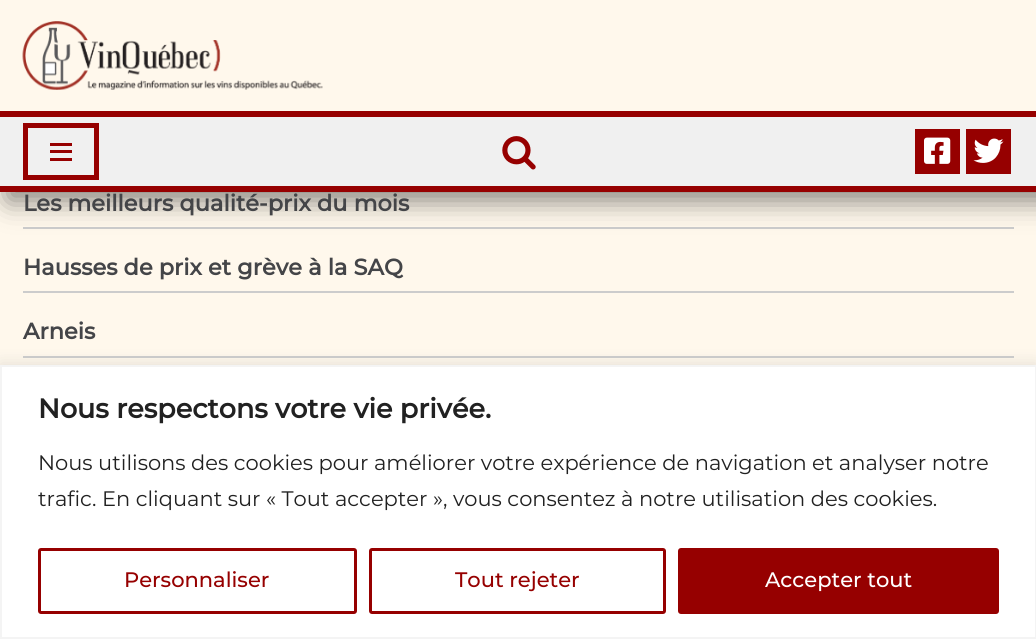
#include <cairo/cairo.h>
#include <math.h>
#include <stddef.h>


static void rounded_rect(cairo_t *cr, double x, double y, double w, double h, double r) {
  cairo_new_sub_path(cr);
  cairo_arc(cr, x + w - r, y + h - r, r, 0, M_PI / 2);
  cairo_arc(cr, x + r, y + h - r, r, M_PI / 2, M_PI);
  cairo_arc(cr, x + r, y + r, r, M_PI, 1.5 * M_PI);
  cairo_arc(cr, x + w - r, y + r, r, 1.5 * M_PI, 2 * M_PI);
  cairo_close_path(cr);
}

static void draw_shadow(cairo_t *cr, double x, double y, double w, double h, double r, double blur, double alpha) {
  cairo_push_group_with_content(cr, CAIRO_CONTENT_ALPHA);
  cairo_set_operator(cr, CAIRO_OPERATOR_SOURCE);
  for (int i = 15; i >= -15 && fmin(w, h) + blur * i / 3 > 0; i -= 2) {
    double e = blur * i / 6;
    cairo_set_source_rgba(cr, 0, 0, 0, alpha * erfc((i - 1) / 8.5) / 2);
    rounded_rect(cr, x - e, y - e, w + 2 * e, h + 2 * e, fmax(0, fmin(r + e + blur * .6, fmin(w, h) / 2 + e)));
    cairo_fill(cr);
  }
  cairo_pattern_t *soft = cairo_pop_group(cr);
  cairo_mask(cr, soft);
  cairo_pattern_destroy(soft);
}

static void draw_image(cairo_t *cr, const char *path, double x, double y, double w, double h) {
  cairo_surface_t *image = cairo_image_surface_create_from_png(path);
  cairo_save(cr);
  cairo_set_source_surface(cr, image, x, y);
  cairo_rectangle(cr, x, y, w, h);
  cairo_fill(cr);
  cairo_restore(cr);
  cairo_surface_destroy(image);
}

static void draw(cairo_t *cr) {
  cairo_set_source_rgb(cr, 1, 248 / 255.0, 236 / 255.0);
  cairo_paint(cr);
  cairo_set_source_rgb(cr, 204 / 255.0, 204 / 255.0, 204 / 255.0);
  cairo_rectangle(cr, 23, 227, 991, 2);
  cairo_fill(cr);
  cairo_set_source_rgb(cr, 0, 0, 0);
  draw_shadow(cr, 8, 8, 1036, 192, 0, 14, 0.5);
  cairo_set_source_rgb(cr, 1, 248 / 255.0, 236 / 255.0);
  cairo_rectangle(cr, 0, 0, 1036, 111);
  cairo_fill(cr);
  cairo_set_source_rgb(cr, 150 / 255.0, 0, 0);
  cairo_rectangle(cr, 0, 111, 1036, 6);
  cairo_fill(cr);
  draw_image(cr, "images/1.png", 22, 21, 301, 69);
  cairo_set_source_rgb(cr, 240 / 255.0, 240 / 255.0, 240 / 255.0);
  cairo_rectangle(cr, 0, 117, 1036, 69);
  cairo_fill(cr);
  cairo_set_source_rgb(cr, 150 / 255.0, 0, 0);
  cairo_rectangle(cr, 0, 186, 1036, 6);
  cairo_fill(cr);
  cairo_rectangle(cr, 25.5, 125.5, 71, 52);
  cairo_set_line_width(cr, 5);
  cairo_stroke(cr);
  cairo_rectangle(cr, 50, 143, 22, 3);
  cairo_fill(cr);
  cairo_rectangle(cr, 50, 150, 22, 3);
  cairo_fill(cr);
  cairo_rectangle(cr, 50, 158, 22, 3);
  cairo_fill(cr);
  draw_image(cr, "images/2.png", 502, 136, 34, 34);
  cairo_rectangle(cr, 915, 129, 45, 45);
  cairo_fill(cr);
  draw_image(cr, "images/3.png", 924, 137, 27, 27);
  cairo_rectangle(cr, 966, 129, 45, 45);
  cairo_fill(cr);
  draw_image(cr, "images/4.png", 973, 138, 31, 25);
  cairo_set_source_rgb(cr, 204 / 255.0, 204 / 255.0, 204 / 255.0);
  cairo_rectangle(cr, 23, 291, 991, 2);
  cairo_fill(cr);
  cairo_rectangle(cr, 23, 356, 991, 2);
  cairo_fill(cr);
  cairo_set_source_rgb(cr, 172 / 255.0, 171 / 255.0, 171 / 255.0);
  draw_shadow(cr, 0, 363, 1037, 275, 0, 7.5, 0.3);
  cairo_set_source_rgb(cr, 1, 1, 1);
  cairo_rectangle(cr, 1, 366, 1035, 272);
  cairo_fill_preserve(cr);
  cairo_set_source_rgb(cr, 244 / 255.0, 244 / 255.0, 244 / 255.0);
  cairo_set_line_width(cr, 2);
  cairo_stroke(cr);
  rounded_rect(cr, 39.5, 549.5, 316, 63, 1.5);
  cairo_set_source_rgb(cr, 150 / 255.0, 0, 0);
  cairo_set_line_width(cr, 3);
  cairo_stroke(cr);
  rounded_rect(cr, 370.5, 549.5, 294, 63, 1.5);
  cairo_stroke(cr);
  rounded_rect(cr, 679.5, 549.5, 318, 63, 1.5);
  cairo_fill_preserve(cr);
  cairo_stroke(cr);
  cairo_select_font_face(cr, "Montserrat", CAIRO_FONT_SLANT_NORMAL, CAIRO_FONT_WEIGHT_BOLD);
  cairo_set_font_size(cr, 22.5);
  cairo_set_source_rgb(cr, 68 / 255.0, 69 / 255.0, 72 / 255.0);
  cairo_move_to(cr, 23, 211);
  cairo_show_text(cr, "Les meilleurs qualité-prix du mois");
  cairo_move_to(cr, 23, 275);
  cairo_show_text(cr, "Hausses de prix et grève à la SAQ");
  cairo_move_to(cr, 23, 339);
  cairo_show_text(cr, "Arneis");
  cairo_set_font_size(cr, 27);
  cairo_set_source_rgb(cr, 33 / 255.0, 33 / 255.0, 33 / 255.0);
  cairo_move_to(cr, 38, 418);
  cairo_show_text(cr, "Nous respectons votre vie privée.");
  cairo_select_font_face(cr, "Montserrat", CAIRO_FONT_SLANT_NORMAL, CAIRO_FONT_WEIGHT_NORMAL);
  cairo_set_font_size(cr, 21);
  cairo_move_to(cr, 38, 470);
  cairo_show_text(cr, "Nous utilisons des cookies pour améliorer votre expérience de navigation et analyser notre");
  cairo_move_to(cr, 38, 506);
  cairo_show_text(cr, "trafic. En cliquant sur « Tout accepter », vous consentez à notre utilisation des cookies.");
  cairo_select_font_face(cr, "Montserrat Medium", CAIRO_FONT_SLANT_NORMAL, CAIRO_FONT_WEIGHT_NORMAL);
  cairo_set_source_rgb(cr, 150 / 255.0, 0, 0);
  cairo_move_to(cr, 124, 587);
  cairo_show_text(cr, "Personnaliser");
  cairo_move_to(cr, 455, 587);
  cairo_show_text(cr, "Tout rejeter");
  cairo_set_source_rgb(cr, 1, 1, 1);
  cairo_move_to(cr, 765, 587);
  cairo_show_text(cr, "Accepter tout");
}

int main(void) {
  cairo_surface_t *surface = cairo_image_surface_create(CAIRO_FORMAT_RGB24, 1036, 639);
  cairo_t *cr = cairo_create(surface);
  cairo_font_options_t *options = cairo_font_options_create();
  cairo_font_options_set_hint_metrics(options, CAIRO_HINT_METRICS_OFF);
  cairo_font_options_set_hint_style(options, CAIRO_HINT_STYLE_NONE);
  cairo_set_font_options(cr, options);
  cairo_set_miter_limit(cr, 4);
  draw(cr);
  cairo_surface_write_to_png(surface, "out.png");
  cairo_font_options_destroy(options);
  cairo_destroy(cr);
  cairo_surface_destroy(surface);
  return 0;
}
